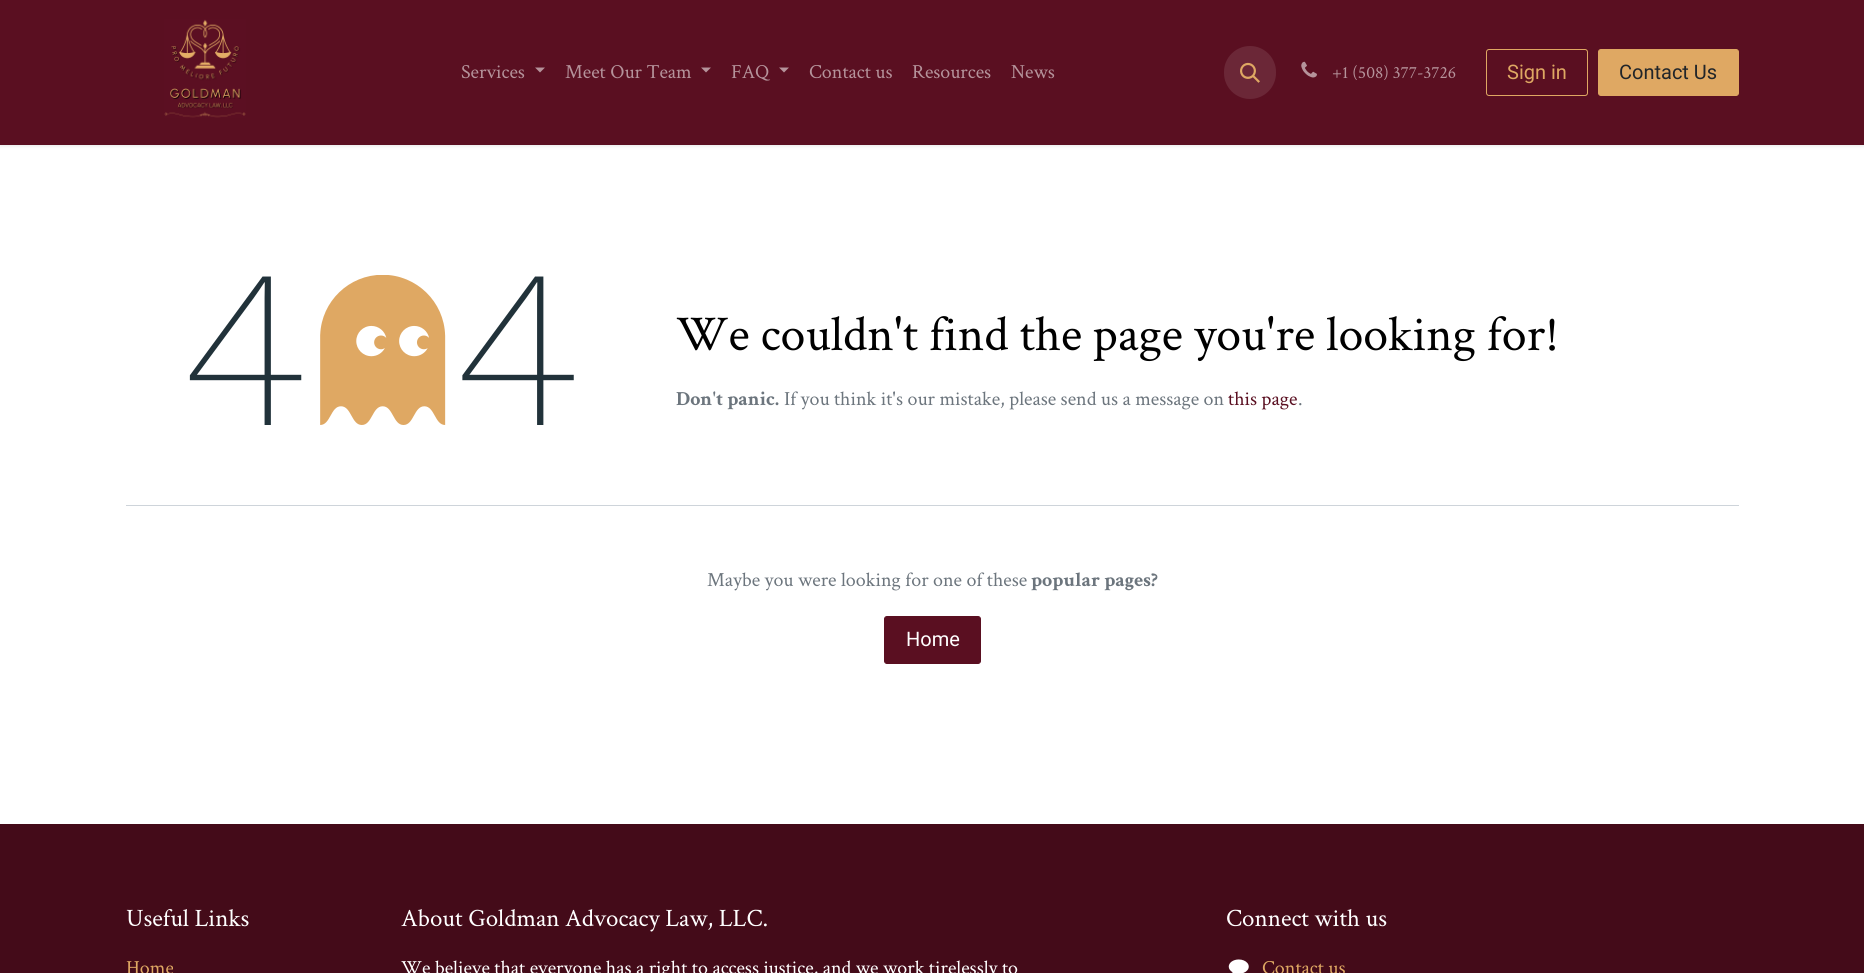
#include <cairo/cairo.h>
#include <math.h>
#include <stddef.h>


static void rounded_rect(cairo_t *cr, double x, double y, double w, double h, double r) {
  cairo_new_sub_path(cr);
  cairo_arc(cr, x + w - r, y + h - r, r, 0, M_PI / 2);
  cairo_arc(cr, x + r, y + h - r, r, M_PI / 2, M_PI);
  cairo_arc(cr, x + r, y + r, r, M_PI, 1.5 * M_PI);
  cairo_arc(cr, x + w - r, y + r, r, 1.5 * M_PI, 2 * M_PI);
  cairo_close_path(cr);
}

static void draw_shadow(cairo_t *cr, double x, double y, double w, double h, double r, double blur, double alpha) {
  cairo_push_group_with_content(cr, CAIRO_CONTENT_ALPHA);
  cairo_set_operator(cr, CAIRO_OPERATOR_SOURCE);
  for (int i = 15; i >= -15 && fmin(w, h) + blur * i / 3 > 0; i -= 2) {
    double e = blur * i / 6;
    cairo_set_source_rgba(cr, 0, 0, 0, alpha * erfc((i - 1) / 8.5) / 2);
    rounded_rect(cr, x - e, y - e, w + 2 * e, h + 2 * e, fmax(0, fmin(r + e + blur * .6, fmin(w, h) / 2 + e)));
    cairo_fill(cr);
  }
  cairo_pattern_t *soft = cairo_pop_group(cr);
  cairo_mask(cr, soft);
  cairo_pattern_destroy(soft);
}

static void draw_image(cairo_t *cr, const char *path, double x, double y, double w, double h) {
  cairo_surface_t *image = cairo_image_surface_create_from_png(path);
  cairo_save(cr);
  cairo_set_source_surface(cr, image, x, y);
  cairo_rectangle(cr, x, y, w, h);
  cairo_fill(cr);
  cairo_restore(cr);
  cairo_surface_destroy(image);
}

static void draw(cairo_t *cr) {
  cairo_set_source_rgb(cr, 1, 1, 1);
  cairo_paint(cr);
  cairo_set_source_rgb(cr, 0, 0, 0);
  draw_shadow(cr, 0, 1, 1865, 145, 0, 2, 0.1);
  cairo_set_source_rgb(cr, 90 / 255.0, 15 / 255.0, 33 / 255.0);
  cairo_rectangle(cr, 0, 0, 1864, 145);
  cairo_fill(cr);
  draw_image(cr, "images/1.png", 164, 19, 82, 99);
  cairo_set_source_rgb(cr, 181 / 255.0, 147 / 255.0, 155 / 255.0);
  cairo_new_path(cr);
  cairo_move_to(cr, 535, 67.5);
  cairo_line_to(cr, 545, 67.5);
  cairo_line_to(cr, 540, 72.5);
  cairo_close_path(cr);
  cairo_fill(cr);
  cairo_new_path(cr);
  cairo_move_to(cr, 701, 67.5);
  cairo_line_to(cr, 711, 67.5);
  cairo_line_to(cr, 706, 72.5);
  cairo_close_path(cr);
  cairo_fill(cr);
  cairo_new_path(cr);
  cairo_move_to(cr, 779, 67.5);
  cairo_line_to(cr, 789, 67.5);
  cairo_line_to(cr, 784, 72.5);
  cairo_close_path(cr);
  cairo_fill(cr);
  cairo_set_source_rgb(cr, 107 / 255.0, 39 / 255.0, 55 / 255.0);
  rounded_rect(cr, 1224, 46, 52, 53, 26);
  cairo_fill(cr);
  draw_image(cr, "images/2.png", 1240, 62, 20, 21);
  draw_image(cr, "images/3.png", 1301, 61, 16, 17);
  rounded_rect(cr, 1486.5, 49.5, 101, 46, 2.5);
  cairo_set_source_rgb(cr, 223 / 255.0, 168 / 255.0, 99 / 255.0);
  cairo_set_line_width(cr, 1);
  cairo_stroke(cr);
  rounded_rect(cr, 1598.5, 49.5, 140, 46, 2.5);
  cairo_fill_preserve(cr);
  cairo_stroke(cr);
  draw_image(cr, "images/4.png", 189, 275, 385, 150);
  cairo_set_source_rgb(cr, 206 / 255.0, 212 / 255.0, 218 / 255.0);
  cairo_rectangle(cr, 126, 505, 1613, 1);
  cairo_fill(cr);
  cairo_set_source_rgb(cr, 90 / 255.0, 15 / 255.0, 33 / 255.0);
  rounded_rect(cr, 884.5, 616.5, 96, 47, 2.5);
  cairo_fill_preserve(cr);
  cairo_stroke(cr);
  cairo_set_source_rgb(cr, 68 / 255.0, 11 / 255.0, 25 / 255.0);
  cairo_rectangle(cr, 0, 824, 1864, 149);
  cairo_fill(cr);
  draw_image(cr, "images/5.png", 1228, 959, 21, 14);
  cairo_select_font_face(cr, "Crimson Text", CAIRO_FONT_SLANT_NORMAL, CAIRO_FONT_WEIGHT_NORMAL);
  cairo_set_font_size(cr, 20);
  cairo_set_source_rgb(cr, 181 / 255.0, 147 / 255.0, 155 / 255.0);
  cairo_move_to(cr, 461, 78);
  cairo_show_text(cr, "Services");
  cairo_move_to(cr, 565, 78);
  cairo_show_text(cr, "Meet Our Team");
  cairo_move_to(cr, 731, 78);
  cairo_show_text(cr, "FAQ");
  cairo_move_to(cr, 809, 78);
  cairo_show_text(cr, "Contact us");
  cairo_move_to(cr, 912, 78);
  cairo_show_text(cr, "Resources");
  cairo_move_to(cr, 1011, 78);
  cairo_show_text(cr, "News");
  cairo_set_font_size(cr, 17.5);
  cairo_move_to(cr, 1332, 78);
  cairo_show_text(cr, "+1 (508) 377-3726");
  cairo_select_font_face(cr, "Roboto", CAIRO_FONT_SLANT_NORMAL, CAIRO_FONT_WEIGHT_NORMAL);
  cairo_set_font_size(cr, 20);
  cairo_set_source_rgb(cr, 223 / 255.0, 168 / 255.0, 99 / 255.0);
  cairo_move_to(cr, 1507, 79);
  cairo_show_text(cr, "Sign in");
  cairo_set_source_rgb(cr, 33 / 255.0, 37 / 255.0, 41 / 255.0);
  cairo_move_to(cr, 1619, 79);
  cairo_show_text(cr, "Contact Us");
  cairo_select_font_face(cr, "Crimson Text", CAIRO_FONT_SLANT_NORMAL, CAIRO_FONT_WEIGHT_NORMAL);
  cairo_set_font_size(cr, 50);
  cairo_set_source_rgb(cr, 0, 0, 0);
  cairo_move_to(cr, 676, 350);
  cairo_show_text(cr, "We couldn't find the page you're looking for!");
  cairo_select_font_face(cr, "Crimson Text", CAIRO_FONT_SLANT_NORMAL, CAIRO_FONT_WEIGHT_BOLD);
  cairo_set_font_size(cr, 20);
  cairo_set_source_rgb(cr, 108 / 255.0, 117 / 255.0, 125 / 255.0);
  cairo_move_to(cr, 676, 405);
  cairo_show_text(cr, "Don't panic.");
  cairo_select_font_face(cr, "Crimson Text", CAIRO_FONT_SLANT_NORMAL, CAIRO_FONT_WEIGHT_NORMAL);
  cairo_move_to(cr, 784, 405);
  cairo_show_text(cr, "If you think it's our mistake, please send us a message on");
  cairo_set_source_rgb(cr, 90 / 255.0, 15 / 255.0, 33 / 255.0);
  cairo_move_to(cr, 1228, 405);
  cairo_show_text(cr, "this page");
  cairo_set_source_rgb(cr, 108 / 255.0, 117 / 255.0, 125 / 255.0);
  cairo_move_to(cr, 1298, 405);
  cairo_show_text(cr, ".");
  cairo_move_to(cr, 707, 586);
  cairo_show_text(cr, "Maybe you were looking for one of these");
  cairo_select_font_face(cr, "Crimson Text", CAIRO_FONT_SLANT_NORMAL, CAIRO_FONT_WEIGHT_BOLD);
  cairo_move_to(cr, 1031, 586);
  cairo_show_text(cr, "popular pages?");
  cairo_select_font_face(cr, "Roboto", CAIRO_FONT_SLANT_NORMAL, CAIRO_FONT_WEIGHT_NORMAL);
  cairo_set_source_rgb(cr, 1, 1, 1);
  cairo_move_to(cr, 906, 646);
  cairo_show_text(cr, "Home");
  cairo_select_font_face(cr, "Crimson Text", CAIRO_FONT_SLANT_NORMAL, CAIRO_FONT_WEIGHT_NORMAL);
  cairo_set_font_size(cr, 25);
  cairo_move_to(cr, 126, 926);
  cairo_show_text(cr, "Useful Links");
  cairo_set_font_size(cr, 20);
  cairo_set_source_rgb(cr, 223 / 255.0, 168 / 255.0, 99 / 255.0);
  cairo_move_to(cr, 126, 974);
  cairo_show_text(cr, "Home");
  cairo_set_font_size(cr, 25);
  cairo_set_source_rgb(cr, 1, 1, 1);
  cairo_move_to(cr, 401, 926);
  cairo_show_text(cr, "About Goldman Advocacy Law, LLC.");
  cairo_set_font_size(cr, 20);
  cairo_move_to(cr, 401, 974);
  cairo_show_text(cr, "We believe that everyone has a right to access justice, and we work tirelessly to");
  cairo_set_font_size(cr, 25);
  cairo_move_to(cr, 1226, 926);
  cairo_show_text(cr, "Connect with us");
  cairo_set_font_size(cr, 20);
  cairo_set_source_rgb(cr, 223 / 255.0, 168 / 255.0, 99 / 255.0);
  cairo_move_to(cr, 1262, 974);
  cairo_show_text(cr, "Contact us");
}

int main(void) {
  cairo_surface_t *surface = cairo_image_surface_create(CAIRO_FORMAT_RGB24, 1864, 973);
  cairo_t *cr = cairo_create(surface);
  cairo_font_options_t *options = cairo_font_options_create();
  cairo_font_options_set_hint_metrics(options, CAIRO_HINT_METRICS_OFF);
  cairo_font_options_set_hint_style(options, CAIRO_HINT_STYLE_NONE);
  cairo_set_font_options(cr, options);
  cairo_set_miter_limit(cr, 4);
  draw(cr);
  cairo_surface_write_to_png(surface, "out.png");
  cairo_font_options_destroy(options);
  cairo_destroy(cr);
  cairo_surface_destroy(surface);
  return 0;
}
